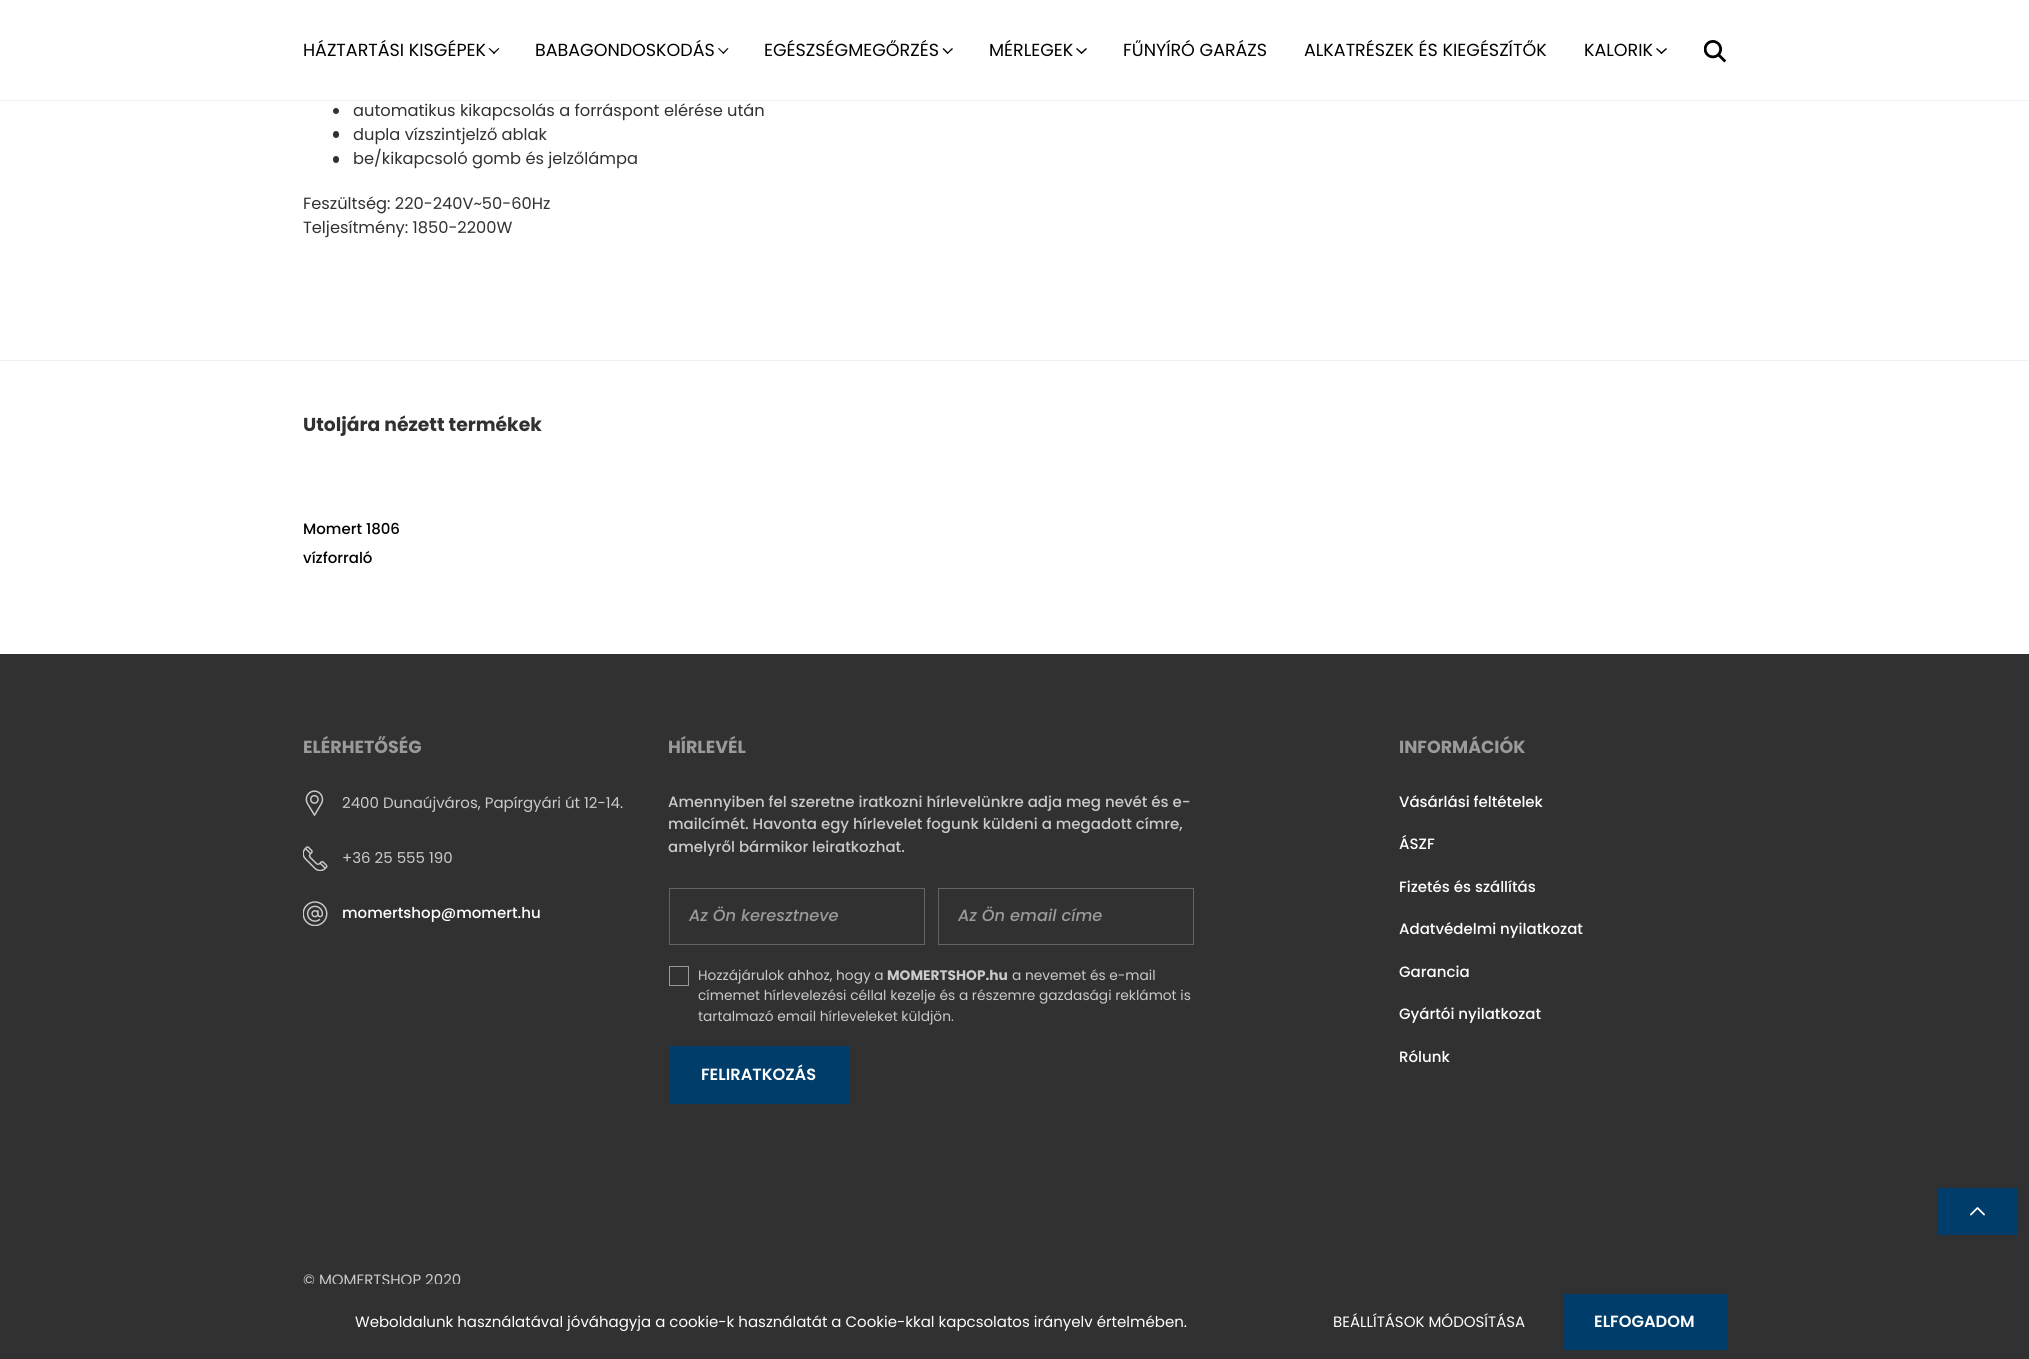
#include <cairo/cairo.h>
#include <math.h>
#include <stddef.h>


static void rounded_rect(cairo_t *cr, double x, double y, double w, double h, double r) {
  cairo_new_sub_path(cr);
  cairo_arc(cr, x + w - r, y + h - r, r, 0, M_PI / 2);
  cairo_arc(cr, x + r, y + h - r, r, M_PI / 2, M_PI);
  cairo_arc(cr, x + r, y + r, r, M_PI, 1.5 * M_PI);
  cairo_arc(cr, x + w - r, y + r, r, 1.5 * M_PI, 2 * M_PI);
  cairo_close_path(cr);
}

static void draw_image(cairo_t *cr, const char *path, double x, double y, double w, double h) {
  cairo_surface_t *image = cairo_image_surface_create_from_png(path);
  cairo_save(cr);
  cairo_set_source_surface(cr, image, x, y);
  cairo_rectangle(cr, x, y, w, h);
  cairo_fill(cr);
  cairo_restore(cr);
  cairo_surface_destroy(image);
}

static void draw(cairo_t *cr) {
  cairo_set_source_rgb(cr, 1, 1, 1);
  cairo_paint(cr);
  cairo_set_source_rgb(cr, 239 / 255.0, 240 / 255.0, 241 / 255.0);
  cairo_rectangle(cr, 0, 100, 2029, 1);
  cairo_fill(cr);
  cairo_set_source_rgb(cr, 0, 0, 0);
  cairo_new_path(cr);
  cairo_move_to(cr, 498.5, 48);
  cairo_line_to(cr, 499.5, 48.5);
  cairo_line_to(cr, 494, 54);
  cairo_line_to(cr, 493, 53);
  cairo_close_path(cr);
  cairo_fill(cr);
  cairo_new_path(cr);
  cairo_move_to(cr, 489.5, 48);
  cairo_line_to(cr, 495, 53);
  cairo_line_to(cr, 494, 54);
  cairo_line_to(cr, 488.5, 48.5);
  cairo_close_path(cr);
  cairo_fill(cr);
  cairo_new_path(cr);
  cairo_move_to(cr, 727.5, 48);
  cairo_line_to(cr, 728.5, 48.5);
  cairo_line_to(cr, 723.5, 54);
  cairo_line_to(cr, 722.5, 53);
  cairo_close_path(cr);
  cairo_fill(cr);
  cairo_new_path(cr);
  cairo_move_to(cr, 719, 48);
  cairo_line_to(cr, 724, 53);
  cairo_line_to(cr, 723.5, 54);
  cairo_line_to(cr, 718, 48.5);
  cairo_close_path(cr);
  cairo_fill(cr);
  cairo_new_path(cr);
  cairo_move_to(cr, 952, 48);
  cairo_line_to(cr, 953, 49);
  cairo_line_to(cr, 947.5, 54);
  cairo_line_to(cr, 947, 53);
  cairo_close_path(cr);
  cairo_fill(cr);
  cairo_new_path(cr);
  cairo_move_to(cr, 943.5, 48);
  cairo_line_to(cr, 948.5, 53);
  cairo_line_to(cr, 947.5, 54);
  cairo_line_to(cr, 942.5, 49);
  cairo_close_path(cr);
  cairo_fill(cr);
  cairo_new_path(cr);
  cairo_move_to(cr, 1086, 48);
  cairo_line_to(cr, 1087, 49);
  cairo_line_to(cr, 1081.5, 54);
  cairo_line_to(cr, 1080.5, 53);
  cairo_close_path(cr);
  cairo_fill(cr);
  cairo_new_path(cr);
  cairo_move_to(cr, 1077, 48);
  cairo_line_to(cr, 1082.5, 53);
  cairo_line_to(cr, 1081.5, 54);
  cairo_line_to(cr, 1076, 49);
  cairo_close_path(cr);
  cairo_fill(cr);
  cairo_new_path(cr);
  cairo_move_to(cr, 1666, 48);
  cairo_line_to(cr, 1667, 49);
  cairo_line_to(cr, 1661.5, 54);
  cairo_line_to(cr, 1660.5, 53);
  cairo_close_path(cr);
  cairo_fill(cr);
  cairo_new_path(cr);
  cairo_move_to(cr, 1657, 48);
  cairo_line_to(cr, 1662.5, 53);
  cairo_line_to(cr, 1661.5, 54);
  cairo_line_to(cr, 1656, 49);
  cairo_close_path(cr);
  cairo_fill(cr);
  draw_image(cr, "images/1.png", 1704, 40, 22, 23);
  cairo_set_source_rgb(cr, 49 / 255.0, 49 / 255.0, 49 / 255.0);
  cairo_arc(cr, 336, 111, 3, 0, 2 * M_PI);
  cairo_fill(cr);
  rounded_rect(cr, 333, 131, 6, 7, 3);
  cairo_fill(cr);
  rounded_rect(cr, 333, 156, 6, 7, 3);
  cairo_fill(cr);
  cairo_set_source_rgb(cr, 239 / 255.0, 240 / 255.0, 241 / 255.0);
  cairo_rectangle(cr, 0, 360, 2029, 1);
  cairo_fill(cr);
  cairo_set_source_rgb(cr, 49 / 255.0, 49 / 255.0, 49 / 255.0);
  cairo_rectangle(cr, 0, 654, 2029, 630);
  cairo_fill(cr);
  draw_image(cr, "images/2.png", 305, 790, 19, 26);
  draw_image(cr, "images/3.png", 303, 846, 25, 25);
  draw_image(cr, "images/4.png", 303, 901, 25, 25);
  cairo_rectangle(cr, 669.5, 888.5, 255, 56);
  cairo_set_source_rgb(cr, 100 / 255.0, 100 / 255.0, 100 / 255.0);
  cairo_set_line_width(cr, 1);
  cairo_stroke(cr);
  cairo_rectangle(cr, 938.5, 888.5, 255, 56);
  cairo_stroke(cr);
  cairo_rectangle(cr, 669.5, 966.5, 19, 19);
  cairo_set_source_rgb(cr, 154 / 255.0, 154 / 255.0, 154 / 255.0);
  cairo_stroke(cr);
  cairo_set_source_rgb(cr, 0, 61 / 255.0, 107 / 255.0);
  cairo_rectangle(cr, 669, 1046, 180, 58);
  cairo_fill(cr);
  cairo_rectangle(cr, 1938, 1188, 80, 47);
  cairo_fill(cr);
  draw_image(cr, "images/5.png", 1970, 1207, 15, 9);
  cairo_select_font_face(cr, "Poppins", CAIRO_FONT_SLANT_NORMAL, CAIRO_FONT_WEIGHT_NORMAL);
  cairo_set_font_size(cr, 17.5);
  cairo_set_source_rgb(cr, 0, 0, 0);
  cairo_move_to(cr, 303, 56);
  cairo_show_text(cr, "HÁZTARTÁSI KISGÉPEK");
  cairo_move_to(cr, 535, 56);
  cairo_show_text(cr, "BABAGONDOSKODÁS");
  cairo_move_to(cr, 764, 56);
  cairo_show_text(cr, "EGÉSZSÉGMEGŐRZÉS");
  cairo_move_to(cr, 989, 56);
  cairo_show_text(cr, "MÉRLEGEK");
  cairo_move_to(cr, 1123, 56);
  cairo_show_text(cr, "FŰNYÍRÓ GARÁZS");
  cairo_move_to(cr, 1304, 56);
  cairo_show_text(cr, "ALKATRÉSZEK ÉS KIEGÉSZÍTŐK");
  cairo_move_to(cr, 1584, 56);
  cairo_show_text(cr, "KALORIK");
  cairo_set_font_size(cr, 16.25);
  cairo_set_source_rgb(cr, 49 / 255.0, 49 / 255.0, 49 / 255.0);
  cairo_move_to(cr, 353, 116);
  cairo_show_text(cr, "automatikus kikapcsolás a forráspont elérése után");
  cairo_move_to(cr, 353, 140);
  cairo_show_text(cr, "dupla vízszintjelző ablak");
  cairo_move_to(cr, 353, 164);
  cairo_show_text(cr, "be/kikapcsoló gomb és jelzőlámpa");
  cairo_move_to(cr, 303, 209);
  cairo_show_text(cr, "Feszültség: 220-240V~50-60Hz");
  cairo_move_to(cr, 303, 233);
  cairo_show_text(cr, "Teljesítmény: 1850-2200W");
  cairo_select_font_face(cr, "Poppins", CAIRO_FONT_SLANT_NORMAL, CAIRO_FONT_WEIGHT_BOLD);
  cairo_set_font_size(cr, 18.75);
  cairo_move_to(cr, 303, 431);
  cairo_show_text(cr, "Utoljára nézett termékek");
  cairo_select_font_face(cr, "Poppins Medium", CAIRO_FONT_SLANT_NORMAL, CAIRO_FONT_WEIGHT_NORMAL);
  cairo_set_font_size(cr, 15);
  cairo_set_source_rgb(cr, 0, 0, 0);
  cairo_move_to(cr, 303, 534);
  cairo_show_text(cr, "Momert 1806");
  cairo_move_to(cr, 303, 563);
  cairo_show_text(cr, "vízforraló");
  cairo_select_font_face(cr, "Poppins", CAIRO_FONT_SLANT_NORMAL, CAIRO_FONT_WEIGHT_BOLD);
  cairo_set_font_size(cr, 17.5);
  cairo_set_source_rgb(cr, 154 / 255.0, 154 / 255.0, 154 / 255.0);
  cairo_move_to(cr, 303, 753);
  cairo_show_text(cr, "ELÉRHETŐSÉG");
  cairo_select_font_face(cr, "Poppins", CAIRO_FONT_SLANT_NORMAL, CAIRO_FONT_WEIGHT_NORMAL);
  cairo_set_font_size(cr, 15);
  cairo_set_source_rgb(cr, 202 / 255.0, 202 / 255.0, 202 / 255.0);
  cairo_move_to(cr, 342, 808);
  cairo_show_text(cr, "2400 Dunaújváros, Papírgyári út 12-14.");
  cairo_move_to(cr, 342, 863);
  cairo_show_text(cr, "+36 25 555 190");
  cairo_select_font_face(cr, "Poppins Medium", CAIRO_FONT_SLANT_NORMAL, CAIRO_FONT_WEIGHT_NORMAL);
  cairo_set_source_rgb(cr, 1, 1, 1);
  cairo_move_to(cr, 342, 918);
  cairo_show_text(cr, "momertshop@momert.hu");
  cairo_select_font_face(cr, "Poppins", CAIRO_FONT_SLANT_NORMAL, CAIRO_FONT_WEIGHT_BOLD);
  cairo_set_font_size(cr, 17.5);
  cairo_set_source_rgb(cr, 154 / 255.0, 154 / 255.0, 154 / 255.0);
  cairo_move_to(cr, 668, 753);
  cairo_show_text(cr, "HÍRLEVÉL");
  cairo_select_font_face(cr, "Poppins Medium", CAIRO_FONT_SLANT_NORMAL, CAIRO_FONT_WEIGHT_NORMAL);
  cairo_set_font_size(cr, 15);
  cairo_set_source_rgb(cr, 202 / 255.0, 202 / 255.0, 202 / 255.0);
  cairo_move_to(cr, 668, 807);
  cairo_show_text(cr, "Amennyiben fel szeretne iratkozni hírlevelünkre adja meg nevét és e-");
  cairo_move_to(cr, 668, 829);
  cairo_show_text(cr, "mailcímét. Havonta egy hírlevelet fogunk küldeni a megadott címre,");
  cairo_move_to(cr, 668, 852);
  cairo_show_text(cr, "amelyről bármikor leiratkozhat.");
  cairo_select_font_face(cr, "Poppins Medium", CAIRO_FONT_SLANT_ITALIC, CAIRO_FONT_WEIGHT_NORMAL);
  cairo_set_font_size(cr, 16.25);
  cairo_set_source_rgb(cr, 154 / 255.0, 154 / 255.0, 154 / 255.0);
  cairo_move_to(cr, 689, 921);
  cairo_show_text(cr, "Az Ön keresztneve");
  cairo_move_to(cr, 958, 921);
  cairo_show_text(cr, "Az Ön email címe");
  cairo_select_font_face(cr, "Poppins", CAIRO_FONT_SLANT_NORMAL, CAIRO_FONT_WEIGHT_NORMAL);
  cairo_set_font_size(cr, 13.75);
  cairo_set_source_rgb(cr, 202 / 255.0, 202 / 255.0, 202 / 255.0);
  cairo_move_to(cr, 698, 980);
  cairo_show_text(cr, "Hozzájárulok ahhoz, hogy a");
  cairo_select_font_face(cr, "Poppins", CAIRO_FONT_SLANT_NORMAL, CAIRO_FONT_WEIGHT_BOLD);
  cairo_move_to(cr, 887, 980);
  cairo_show_text(cr, "MOMERTSHOP.hu");
  cairo_select_font_face(cr, "Poppins", CAIRO_FONT_SLANT_NORMAL, CAIRO_FONT_WEIGHT_NORMAL);
  cairo_move_to(cr, 1012, 980);
  cairo_show_text(cr, "a nevemet és e-mail");
  cairo_move_to(cr, 698, 1000);
  cairo_show_text(cr, "címemet hírlevelezési céllal kezelje és a részemre gazdasági reklámot is");
  cairo_move_to(cr, 698, 1021);
  cairo_show_text(cr, "tartalmazó email hírleveleket küldjön.");
  cairo_select_font_face(cr, "Poppins SemiBold", CAIRO_FONT_SLANT_NORMAL, CAIRO_FONT_WEIGHT_NORMAL);
  cairo_set_font_size(cr, 16.25);
  cairo_set_source_rgb(cr, 1, 1, 1);
  cairo_move_to(cr, 701, 1080);
  cairo_show_text(cr, "FELIRATKOZÁS");
  cairo_select_font_face(cr, "Poppins", CAIRO_FONT_SLANT_NORMAL, CAIRO_FONT_WEIGHT_BOLD);
  cairo_set_font_size(cr, 17.5);
  cairo_set_source_rgb(cr, 154 / 255.0, 154 / 255.0, 154 / 255.0);
  cairo_move_to(cr, 1399, 753);
  cairo_show_text(cr, "INFORMÁCIÓK");
  cairo_select_font_face(cr, "Poppins Medium", CAIRO_FONT_SLANT_NORMAL, CAIRO_FONT_WEIGHT_NORMAL);
  cairo_set_font_size(cr, 15);
  cairo_set_source_rgb(cr, 1, 1, 1);
  cairo_move_to(cr, 1399, 807);
  cairo_show_text(cr, "Vásárlási feltételek");
  cairo_move_to(cr, 1399, 849);
  cairo_show_text(cr, "ÁSZF");
  cairo_move_to(cr, 1399, 892);
  cairo_show_text(cr, "Fizetés és szállítás");
  cairo_move_to(cr, 1399, 934);
  cairo_show_text(cr, "Adatvédelmi nyilatkozat");
  cairo_move_to(cr, 1399, 977);
  cairo_show_text(cr, "Garancia");
  cairo_move_to(cr, 1399, 1019);
  cairo_show_text(cr, "Gyártói nyilatkozat");
  cairo_move_to(cr, 1399, 1062);
  cairo_show_text(cr, "Rólunk");
  cairo_select_font_face(cr, "Poppins", CAIRO_FONT_SLANT_NORMAL, CAIRO_FONT_WEIGHT_NORMAL);
  cairo_set_source_rgb(cr, 202 / 255.0, 202 / 255.0, 202 / 255.0);
  cairo_move_to(cr, 303, 1285);
  cairo_show_text(cr, "© MOMERTSHOP 2020");
  cairo_set_source_rgb(cr, 49 / 255.0, 49 / 255.0, 49 / 255.0);
  cairo_rectangle(cr, 0, 1284, 2029, 75);
  cairo_fill(cr);
  cairo_set_source_rgb(cr, 1, 1, 1);
  cairo_move_to(cr, 355, 1327);
  cairo_show_text(cr, "Weboldalunk használatával jóváhagyja a cookie-k használatát a Cookie-kkal kapcsolatos irányelv értelmében.");
  cairo_move_to(cr, 1333, 1327);
  cairo_show_text(cr, "BEÁLLÍTÁSOK MÓDOSÍTÁSA");
  cairo_set_source_rgb(cr, 0, 61 / 255.0, 107 / 255.0);
  cairo_rectangle(cr, 1563, 1294, 165, 56);
  cairo_fill(cr);
  cairo_select_font_face(cr, "Poppins SemiBold", CAIRO_FONT_SLANT_NORMAL, CAIRO_FONT_WEIGHT_NORMAL);
  cairo_set_font_size(cr, 16.25);
  cairo_set_source_rgb(cr, 1, 1, 1);
  cairo_move_to(cr, 1594, 1327);
  cairo_show_text(cr, "ELFOGADOM");
}

int main(void) {
  cairo_surface_t *surface = cairo_image_surface_create(CAIRO_FORMAT_RGB24, 2029, 1359);
  cairo_t *cr = cairo_create(surface);
  cairo_font_options_t *options = cairo_font_options_create();
  cairo_font_options_set_hint_metrics(options, CAIRO_HINT_METRICS_OFF);
  cairo_font_options_set_hint_style(options, CAIRO_HINT_STYLE_NONE);
  cairo_set_font_options(cr, options);
  cairo_set_miter_limit(cr, 4);
  draw(cr);
  cairo_surface_write_to_png(surface, "out.png");
  cairo_font_options_destroy(options);
  cairo_destroy(cr);
  cairo_surface_destroy(surface);
  return 0;
}
